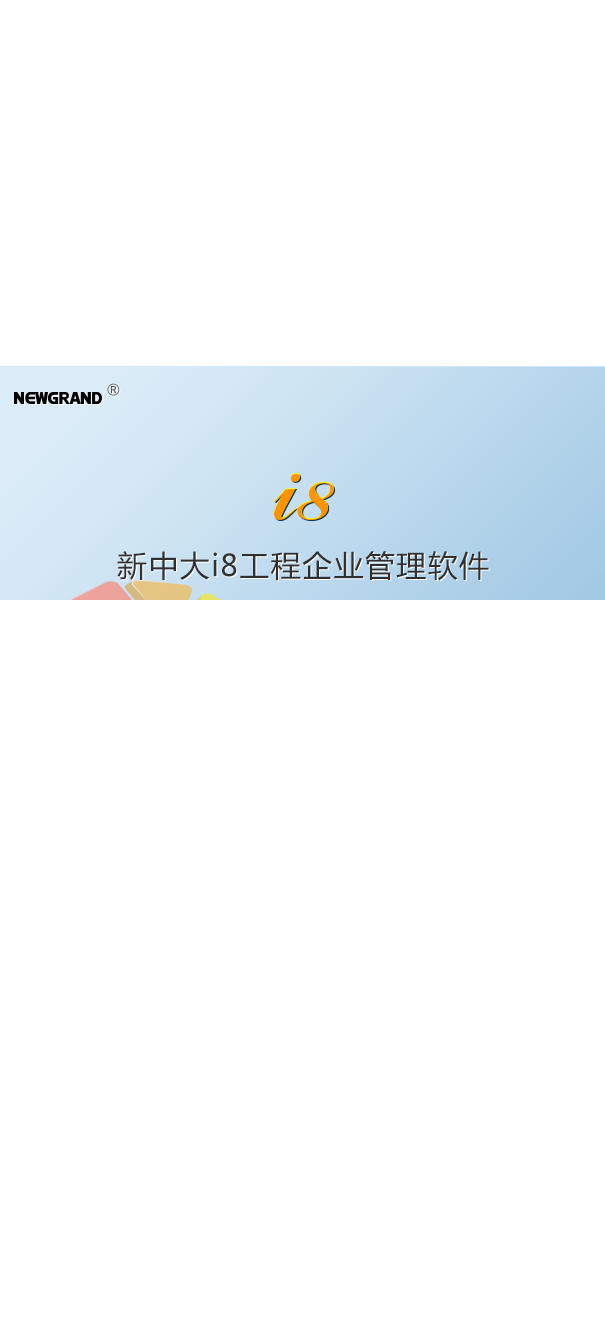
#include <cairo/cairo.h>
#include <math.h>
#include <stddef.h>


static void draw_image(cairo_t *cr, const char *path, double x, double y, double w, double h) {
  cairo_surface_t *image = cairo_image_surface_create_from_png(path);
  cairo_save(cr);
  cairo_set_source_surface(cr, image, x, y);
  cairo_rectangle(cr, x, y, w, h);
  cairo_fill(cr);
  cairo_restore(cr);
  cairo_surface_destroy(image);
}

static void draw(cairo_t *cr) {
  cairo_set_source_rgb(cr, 1, 1, 1);
  cairo_paint(cr);
  draw_image(cr, "images/1.png", 0, 366, 605, 234);
}

int main(void) {
  cairo_surface_t *surface = cairo_image_surface_create(CAIRO_FORMAT_RGB24, 605, 1331);
  cairo_t *cr = cairo_create(surface);
  cairo_font_options_t *options = cairo_font_options_create();
  cairo_font_options_set_hint_metrics(options, CAIRO_HINT_METRICS_OFF);
  cairo_font_options_set_hint_style(options, CAIRO_HINT_STYLE_NONE);
  cairo_set_font_options(cr, options);
  cairo_set_miter_limit(cr, 4);
  draw(cr);
  cairo_surface_write_to_png(surface, "out.png");
  cairo_font_options_destroy(options);
  cairo_destroy(cr);
  cairo_surface_destroy(surface);
  return 0;
}
